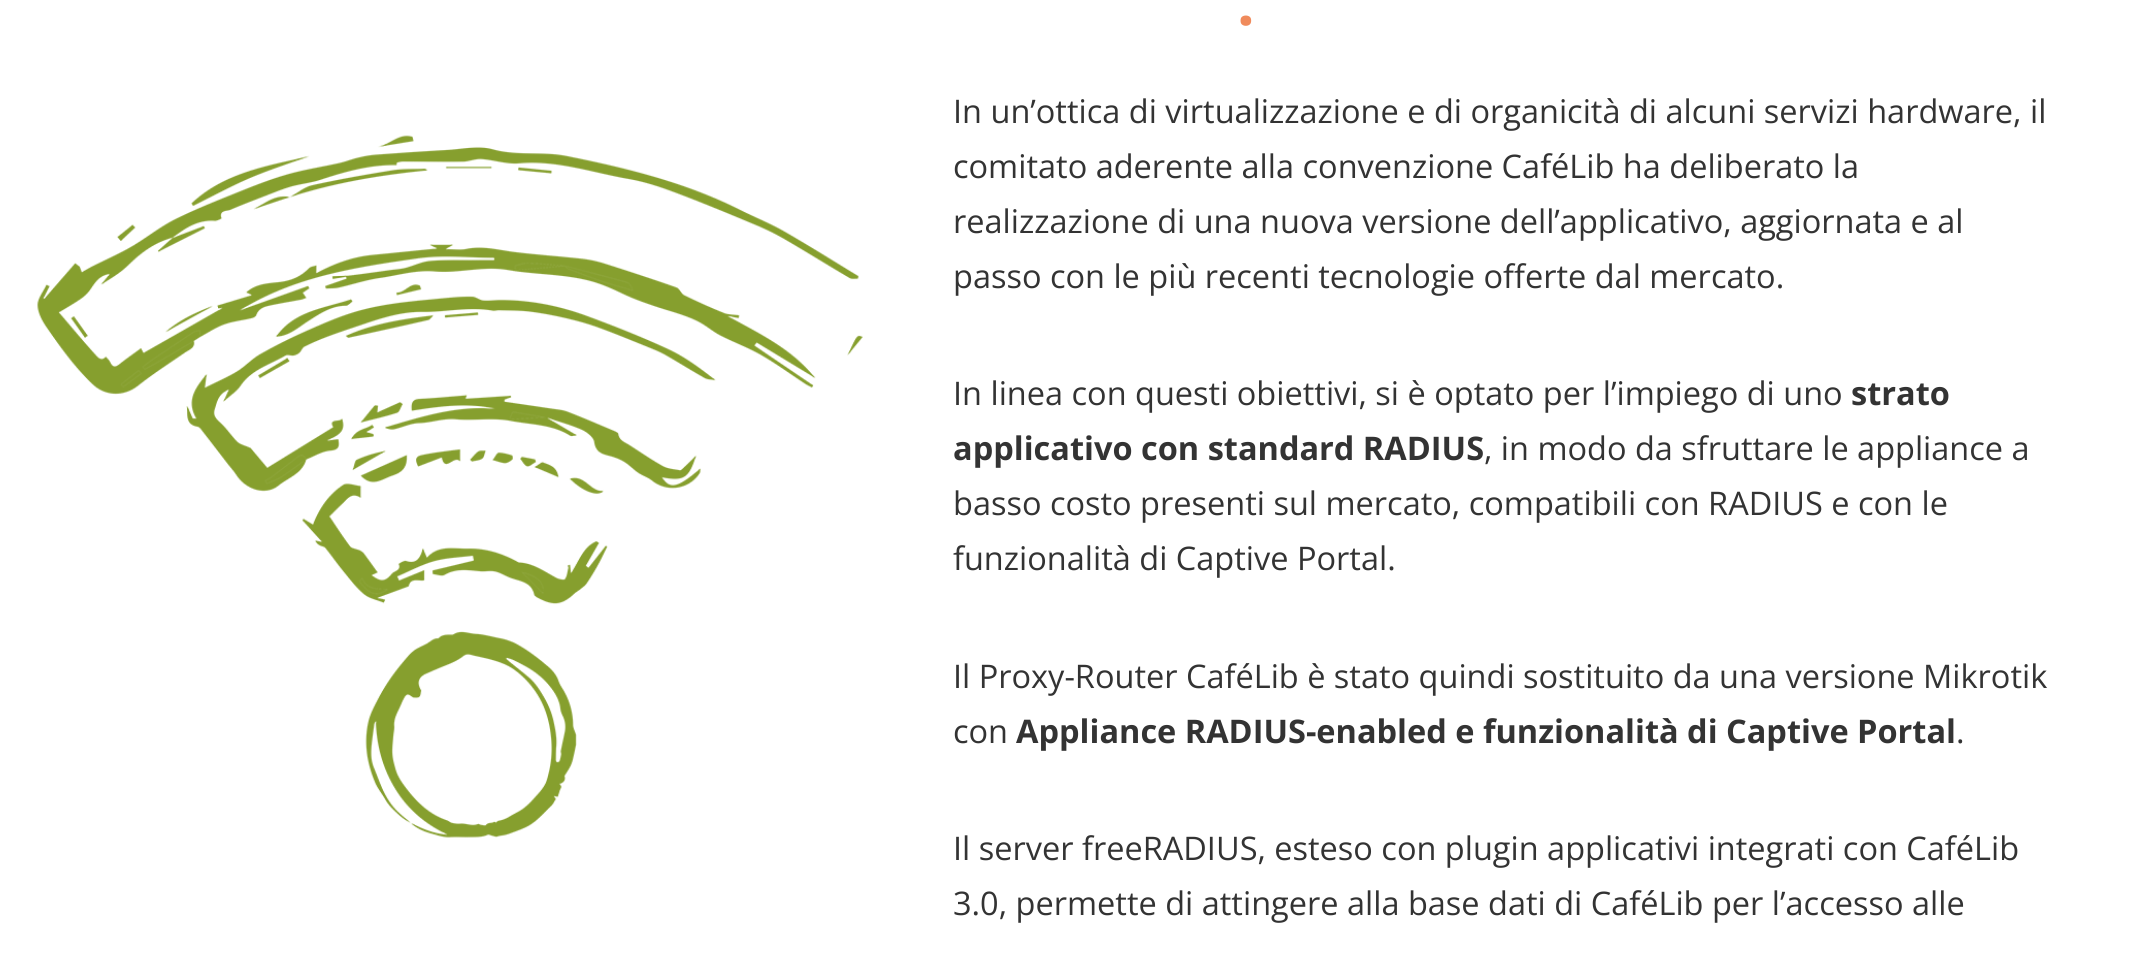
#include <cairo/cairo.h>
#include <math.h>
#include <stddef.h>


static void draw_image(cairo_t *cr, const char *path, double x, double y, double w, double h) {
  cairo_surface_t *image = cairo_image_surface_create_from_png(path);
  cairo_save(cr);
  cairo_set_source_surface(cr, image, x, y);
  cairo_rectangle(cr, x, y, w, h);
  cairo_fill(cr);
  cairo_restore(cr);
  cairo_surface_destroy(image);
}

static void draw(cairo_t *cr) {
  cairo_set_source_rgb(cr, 1, 1, 1);
  cairo_paint(cr);
  draw_image(cr, "images/1.png", 37, 135, 826, 703);
  cairo_select_font_face(cr, "Open Sans", CAIRO_FONT_SLANT_NORMAL, CAIRO_FONT_WEIGHT_BOLD);
  cairo_set_font_size(cr, 62);
  cairo_set_source_rgb(cr, 240 / 255.0, 139 / 255.0, 92 / 255.0);
  cairo_move_to(cr, 1237, 25);
  cairo_show_text(cr, ".");
  cairo_select_font_face(cr, "Open Sans", CAIRO_FONT_SLANT_NORMAL, CAIRO_FONT_WEIGHT_NORMAL);
  cairo_set_font_size(cr, 32.5);
  cairo_set_source_rgb(cr, 51 / 255.0, 51 / 255.0, 51 / 255.0);
  cairo_move_to(cr, 953, 123);
  cairo_show_text(cr, "In un’ottica di virtualizzazione e di organicità di alcuni servizi hardware, il");
  cairo_move_to(cr, 953, 178);
  cairo_show_text(cr, "comitato aderente alla convenzione CaféLib ha deliberato la");
  cairo_move_to(cr, 953, 233);
  cairo_show_text(cr, "realizzazione di una nuova versione dell’applicativo, aggiornata e al");
  cairo_move_to(cr, 953, 288);
  cairo_show_text(cr, "passo con le più recenti tecnologie offerte dal mercato.");
  cairo_move_to(cr, 953, 405);
  cairo_show_text(cr, "In linea con questi obiettivi, si è optato per l’impiego di uno");
  cairo_select_font_face(cr, "Open Sans", CAIRO_FONT_SLANT_NORMAL, CAIRO_FONT_WEIGHT_BOLD);
  cairo_move_to(cr, 1851, 405);
  cairo_show_text(cr, "strato");
  cairo_move_to(cr, 953, 460);
  cairo_show_text(cr, "applicativo con standard RADIUS");
  cairo_select_font_face(cr, "Open Sans", CAIRO_FONT_SLANT_NORMAL, CAIRO_FONT_WEIGHT_NORMAL);
  cairo_move_to(cr, 1484, 460);
  cairo_show_text(cr, ", in modo da sfruttare le appliance a");
  cairo_move_to(cr, 953, 515);
  cairo_show_text(cr, "basso costo presenti sul mercato, compatibili con RADIUS e con le");
  cairo_move_to(cr, 953, 570);
  cairo_show_text(cr, "funzionalità di Captive Portal.");
  cairo_move_to(cr, 953, 688);
  cairo_show_text(cr, "Il Proxy-Router CaféLib è stato quindi sostituito da una versione Mikrotik");
  cairo_move_to(cr, 953, 743);
  cairo_show_text(cr, "con");
  cairo_select_font_face(cr, "Open Sans", CAIRO_FONT_SLANT_NORMAL, CAIRO_FONT_WEIGHT_BOLD);
  cairo_move_to(cr, 1016, 743);
  cairo_show_text(cr, "Appliance RADIUS-enabled e funzionalità di Captive Portal");
  cairo_select_font_face(cr, "Open Sans", CAIRO_FONT_SLANT_NORMAL, CAIRO_FONT_WEIGHT_NORMAL);
  cairo_move_to(cr, 1956, 743);
  cairo_show_text(cr, ".");
  cairo_move_to(cr, 953, 860);
  cairo_show_text(cr, "Il server freeRADIUS, esteso con plugin applicativi integrati con CaféLib");
  cairo_move_to(cr, 953, 915);
  cairo_show_text(cr, "3.0, permette di attingere alla base dati di CaféLib per l’accesso alle");
}

int main(void) {
  cairo_surface_t *surface = cairo_image_surface_create(CAIRO_FORMAT_RGB24, 2140, 956);
  cairo_t *cr = cairo_create(surface);
  cairo_font_options_t *options = cairo_font_options_create();
  cairo_font_options_set_hint_metrics(options, CAIRO_HINT_METRICS_OFF);
  cairo_font_options_set_hint_style(options, CAIRO_HINT_STYLE_NONE);
  cairo_set_font_options(cr, options);
  cairo_set_miter_limit(cr, 4);
  draw(cr);
  cairo_surface_write_to_png(surface, "out.png");
  cairo_font_options_destroy(options);
  cairo_destroy(cr);
  cairo_surface_destroy(surface);
  return 0;
}
